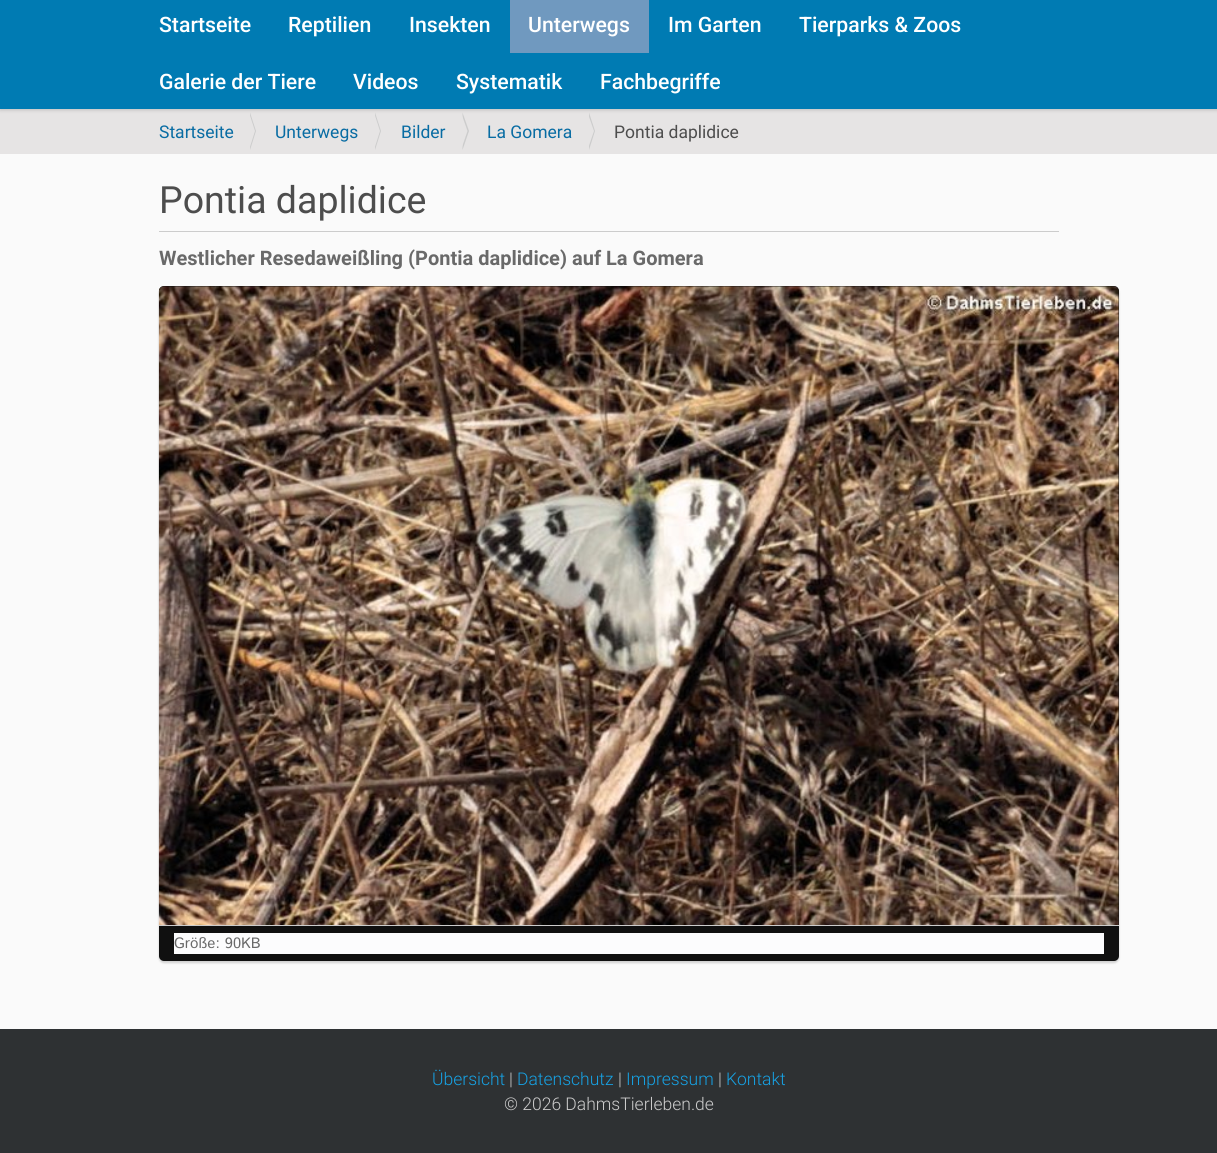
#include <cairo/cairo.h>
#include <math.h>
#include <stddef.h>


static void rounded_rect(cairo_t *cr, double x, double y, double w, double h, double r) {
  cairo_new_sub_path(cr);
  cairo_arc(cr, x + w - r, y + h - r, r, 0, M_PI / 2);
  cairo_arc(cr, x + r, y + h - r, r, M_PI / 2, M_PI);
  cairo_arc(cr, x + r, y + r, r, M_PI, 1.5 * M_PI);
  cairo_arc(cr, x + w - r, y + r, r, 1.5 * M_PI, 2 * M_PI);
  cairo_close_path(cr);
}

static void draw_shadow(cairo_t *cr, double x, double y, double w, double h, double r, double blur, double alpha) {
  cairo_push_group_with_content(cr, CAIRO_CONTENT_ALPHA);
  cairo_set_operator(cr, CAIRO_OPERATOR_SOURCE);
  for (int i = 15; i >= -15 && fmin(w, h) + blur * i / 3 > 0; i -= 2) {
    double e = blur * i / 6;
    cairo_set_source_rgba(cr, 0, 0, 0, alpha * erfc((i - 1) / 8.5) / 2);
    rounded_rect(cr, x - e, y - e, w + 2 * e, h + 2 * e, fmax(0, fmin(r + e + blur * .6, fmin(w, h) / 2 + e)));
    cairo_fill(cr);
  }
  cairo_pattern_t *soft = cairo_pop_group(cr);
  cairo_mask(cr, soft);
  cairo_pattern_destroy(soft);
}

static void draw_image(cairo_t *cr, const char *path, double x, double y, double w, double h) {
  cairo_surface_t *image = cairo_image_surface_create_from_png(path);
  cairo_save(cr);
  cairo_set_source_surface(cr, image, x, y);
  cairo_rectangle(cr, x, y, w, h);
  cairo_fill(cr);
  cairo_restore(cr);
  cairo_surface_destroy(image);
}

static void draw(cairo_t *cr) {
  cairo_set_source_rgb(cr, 250 / 255.0, 250 / 255.0, 250 / 255.0);
  cairo_paint(cr);
  cairo_set_source_rgb(cr, 230 / 255.0, 228 / 255.0, 228 / 255.0);
  cairo_rectangle(cr, 0, 109, 1217, 45);
  cairo_fill(cr);
  cairo_set_source_rgb(cr, 0, 0, 0);
  draw_shadow(cr, 0, -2, 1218, 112, 0, 2, 0.17);
  cairo_set_source_rgb(cr, 0, 123 / 255.0, 179 / 255.0);
  cairo_rectangle(cr, 0, 0, 1217, 109);
  cairo_fill(cr);
  cairo_set_source_rgb(cr, 112 / 255.0, 153 / 255.0, 191 / 255.0);
  cairo_rectangle(cr, 510, 0, 139, 53);
  cairo_fill(cr);
  cairo_set_source_rgb(cr, 204 / 255.0, 204 / 255.0, 204 / 255.0);
  cairo_new_path(cr);
  cairo_move_to(cr, 250, 150);
  cairo_line_to(cr, 250, 112.5);
  cairo_line_to(cr, 256, 131);
  cairo_close_path(cr);
  cairo_fill(cr);
  cairo_set_source_rgb(cr, 230 / 255.0, 228 / 255.0, 228 / 255.0);
  cairo_new_path(cr);
  cairo_move_to(cr, 249, 150);
  cairo_line_to(cr, 249, 112.5);
  cairo_line_to(cr, 255, 131);
  cairo_close_path(cr);
  cairo_fill(cr);
  cairo_set_source_rgb(cr, 204 / 255.0, 204 / 255.0, 204 / 255.0);
  cairo_new_path(cr);
  cairo_move_to(cr, 375, 150);
  cairo_line_to(cr, 375, 112.5);
  cairo_line_to(cr, 381, 131);
  cairo_close_path(cr);
  cairo_fill(cr);
  cairo_set_source_rgb(cr, 230 / 255.0, 228 / 255.0, 228 / 255.0);
  cairo_new_path(cr);
  cairo_move_to(cr, 374, 150);
  cairo_line_to(cr, 374, 112.5);
  cairo_line_to(cr, 380, 131);
  cairo_close_path(cr);
  cairo_fill(cr);
  cairo_set_source_rgb(cr, 204 / 255.0, 204 / 255.0, 204 / 255.0);
  cairo_new_path(cr);
  cairo_move_to(cr, 462.5, 150);
  cairo_line_to(cr, 462.5, 112.5);
  cairo_line_to(cr, 469, 131);
  cairo_close_path(cr);
  cairo_fill(cr);
  cairo_set_source_rgb(cr, 230 / 255.0, 228 / 255.0, 228 / 255.0);
  cairo_new_path(cr);
  cairo_move_to(cr, 461, 150);
  cairo_line_to(cr, 461, 112.5);
  cairo_line_to(cr, 467.5, 131);
  cairo_close_path(cr);
  cairo_fill(cr);
  cairo_set_source_rgb(cr, 204 / 255.0, 204 / 255.0, 204 / 255.0);
  cairo_new_path(cr);
  cairo_move_to(cr, 589, 150);
  cairo_line_to(cr, 589, 112.5);
  cairo_line_to(cr, 595, 131);
  cairo_close_path(cr);
  cairo_fill(cr);
  cairo_set_source_rgb(cr, 230 / 255.0, 228 / 255.0, 228 / 255.0);
  cairo_new_path(cr);
  cairo_move_to(cr, 587.5, 150);
  cairo_line_to(cr, 587.5, 112.5);
  cairo_line_to(cr, 594, 131);
  cairo_close_path(cr);
  cairo_fill(cr);
  cairo_set_source_rgb(cr, 204 / 255.0, 204 / 255.0, 204 / 255.0);
  cairo_rectangle(cr, 159, 231, 900, 1);
  cairo_fill(cr);
  cairo_set_source_rgb(cr, 0, 0, 0);
  draw_shadow(cr, 159, 288, 960, 675, 5, 1, 0.17);
  cairo_set_source_rgb(cr, 16 / 255.0, 16 / 255.0, 16 / 255.0);
  rounded_rect(cr, 159, 286, 960, 675, 5);
  cairo_fill(cr);
  cairo_set_source_rgb(cr, 204 / 255.0, 204 / 255.0, 204 / 255.0);
  cairo_rectangle(cr, 159, 925, 960, 1);
  cairo_fill(cr);
  draw_image(cr, "images/1.png", 158, 286, 961, 639);
  cairo_set_source_rgb(cr, 252 / 255.0, 252 / 255.0, 253 / 255.0);
  cairo_rectangle(cr, 174, 933, 930, 21);
  cairo_fill(cr);
  cairo_set_source_rgb(cr, 46 / 255.0, 49 / 255.0, 51 / 255.0);
  cairo_rectangle(cr, 0, 1029, 1217, 124);
  cairo_fill(cr);
  cairo_select_font_face(cr, "Roboto Medium", CAIRO_FONT_SLANT_NORMAL, CAIRO_FONT_WEIGHT_NORMAL);
  cairo_set_font_size(cr, 21.25);
  cairo_set_source_rgb(cr, 1, 1, 1);
  cairo_move_to(cr, 159, 32);
  cairo_show_text(cr, "Startseite");
  cairo_move_to(cr, 288, 32);
  cairo_show_text(cr, "Reptilien");
  cairo_move_to(cr, 409, 32);
  cairo_show_text(cr, "Insekten");
  cairo_move_to(cr, 528, 32);
  cairo_show_text(cr, "Unterwegs");
  cairo_move_to(cr, 668, 32);
  cairo_show_text(cr, "Im Garten");
  cairo_move_to(cr, 799, 32);
  cairo_show_text(cr, "Tierparks & Zoos");
  cairo_move_to(cr, 159, 89);
  cairo_show_text(cr, "Galerie der Tiere");
  cairo_move_to(cr, 353, 89);
  cairo_show_text(cr, "Videos");
  cairo_move_to(cr, 456, 89);
  cairo_show_text(cr, "Systematik");
  cairo_move_to(cr, 600, 89);
  cairo_show_text(cr, "Fachbegriffe");
  cairo_select_font_face(cr, "Roboto", CAIRO_FONT_SLANT_NORMAL, CAIRO_FONT_WEIGHT_NORMAL);
  cairo_set_font_size(cr, 17.5);
  cairo_set_source_rgb(cr, 8 / 255.0, 108 / 255.0, 163 / 255.0);
  cairo_move_to(cr, 159, 138);
  cairo_show_text(cr, "Startseite");
  cairo_move_to(cr, 275, 138);
  cairo_show_text(cr, "Unterwegs");
  cairo_move_to(cr, 401, 138);
  cairo_show_text(cr, "Bilder");
  cairo_move_to(cr, 487, 138);
  cairo_show_text(cr, "La Gomera");
  cairo_set_source_rgb(cr, 77 / 255.0, 77 / 255.0, 77 / 255.0);
  cairo_move_to(cr, 614, 138);
  cairo_show_text(cr, "Pontia daplidice");
  cairo_set_font_size(cr, 37.5);
  cairo_move_to(cr, 159, 213);
  cairo_show_text(cr, "Pontia daplidice");
  cairo_select_font_face(cr, "Roboto", CAIRO_FONT_SLANT_NORMAL, CAIRO_FONT_WEIGHT_BOLD);
  cairo_set_font_size(cr, 20);
  cairo_set_source_rgb(cr, 105 / 255.0, 105 / 255.0, 105 / 255.0);
  cairo_move_to(cr, 159, 265);
  cairo_show_text(cr, "Westlicher Resedaweißling (Pontia daplidice) auf La Gomera");
  cairo_select_font_face(cr, "Istok Web", CAIRO_FONT_SLANT_NORMAL, CAIRO_FONT_WEIGHT_NORMAL);
  cairo_set_font_size(cr, 15);
  cairo_move_to(cr, 174, 948);
  cairo_show_text(cr, "Größe: 90KB");
  cairo_select_font_face(cr, "Roboto Light", CAIRO_FONT_SLANT_NORMAL, CAIRO_FONT_WEIGHT_NORMAL);
  cairo_set_font_size(cr, 17.5);
  cairo_set_source_rgb(cr, 22 / 255.0, 161 / 255.0, 227 / 255.0);
  cairo_move_to(cr, 432, 1085);
  cairo_show_text(cr, "Übersicht");
  cairo_set_source_rgb(cr, 204 / 255.0, 204 / 255.0, 204 / 255.0);
  cairo_move_to(cr, 509, 1085);
  cairo_show_text(cr, "|");
  cairo_set_source_rgb(cr, 22 / 255.0, 161 / 255.0, 227 / 255.0);
  cairo_move_to(cr, 517, 1085);
  cairo_show_text(cr, "Datenschutz");
  cairo_set_source_rgb(cr, 204 / 255.0, 204 / 255.0, 204 / 255.0);
  cairo_move_to(cr, 618, 1085);
  cairo_show_text(cr, "|");
  cairo_set_source_rgb(cr, 22 / 255.0, 161 / 255.0, 227 / 255.0);
  cairo_move_to(cr, 626, 1085);
  cairo_show_text(cr, "Impressum");
  cairo_set_source_rgb(cr, 204 / 255.0, 204 / 255.0, 204 / 255.0);
  cairo_move_to(cr, 718, 1085);
  cairo_show_text(cr, "|");
  cairo_set_source_rgb(cr, 22 / 255.0, 161 / 255.0, 227 / 255.0);
  cairo_move_to(cr, 726, 1085);
  cairo_show_text(cr, "Kontakt");
  cairo_set_source_rgb(cr, 204 / 255.0, 204 / 255.0, 204 / 255.0);
  cairo_move_to(cr, 504, 1110);
  cairo_show_text(cr, "© 2026 DahmsTierleben.de");
}

int main(void) {
  cairo_surface_t *surface = cairo_image_surface_create(CAIRO_FORMAT_RGB24, 1217, 1153);
  cairo_t *cr = cairo_create(surface);
  cairo_font_options_t *options = cairo_font_options_create();
  cairo_font_options_set_hint_metrics(options, CAIRO_HINT_METRICS_OFF);
  cairo_font_options_set_hint_style(options, CAIRO_HINT_STYLE_NONE);
  cairo_set_font_options(cr, options);
  cairo_set_miter_limit(cr, 4);
  draw(cr);
  cairo_surface_write_to_png(surface, "out.png");
  cairo_font_options_destroy(options);
  cairo_destroy(cr);
  cairo_surface_destroy(surface);
  return 0;
}
